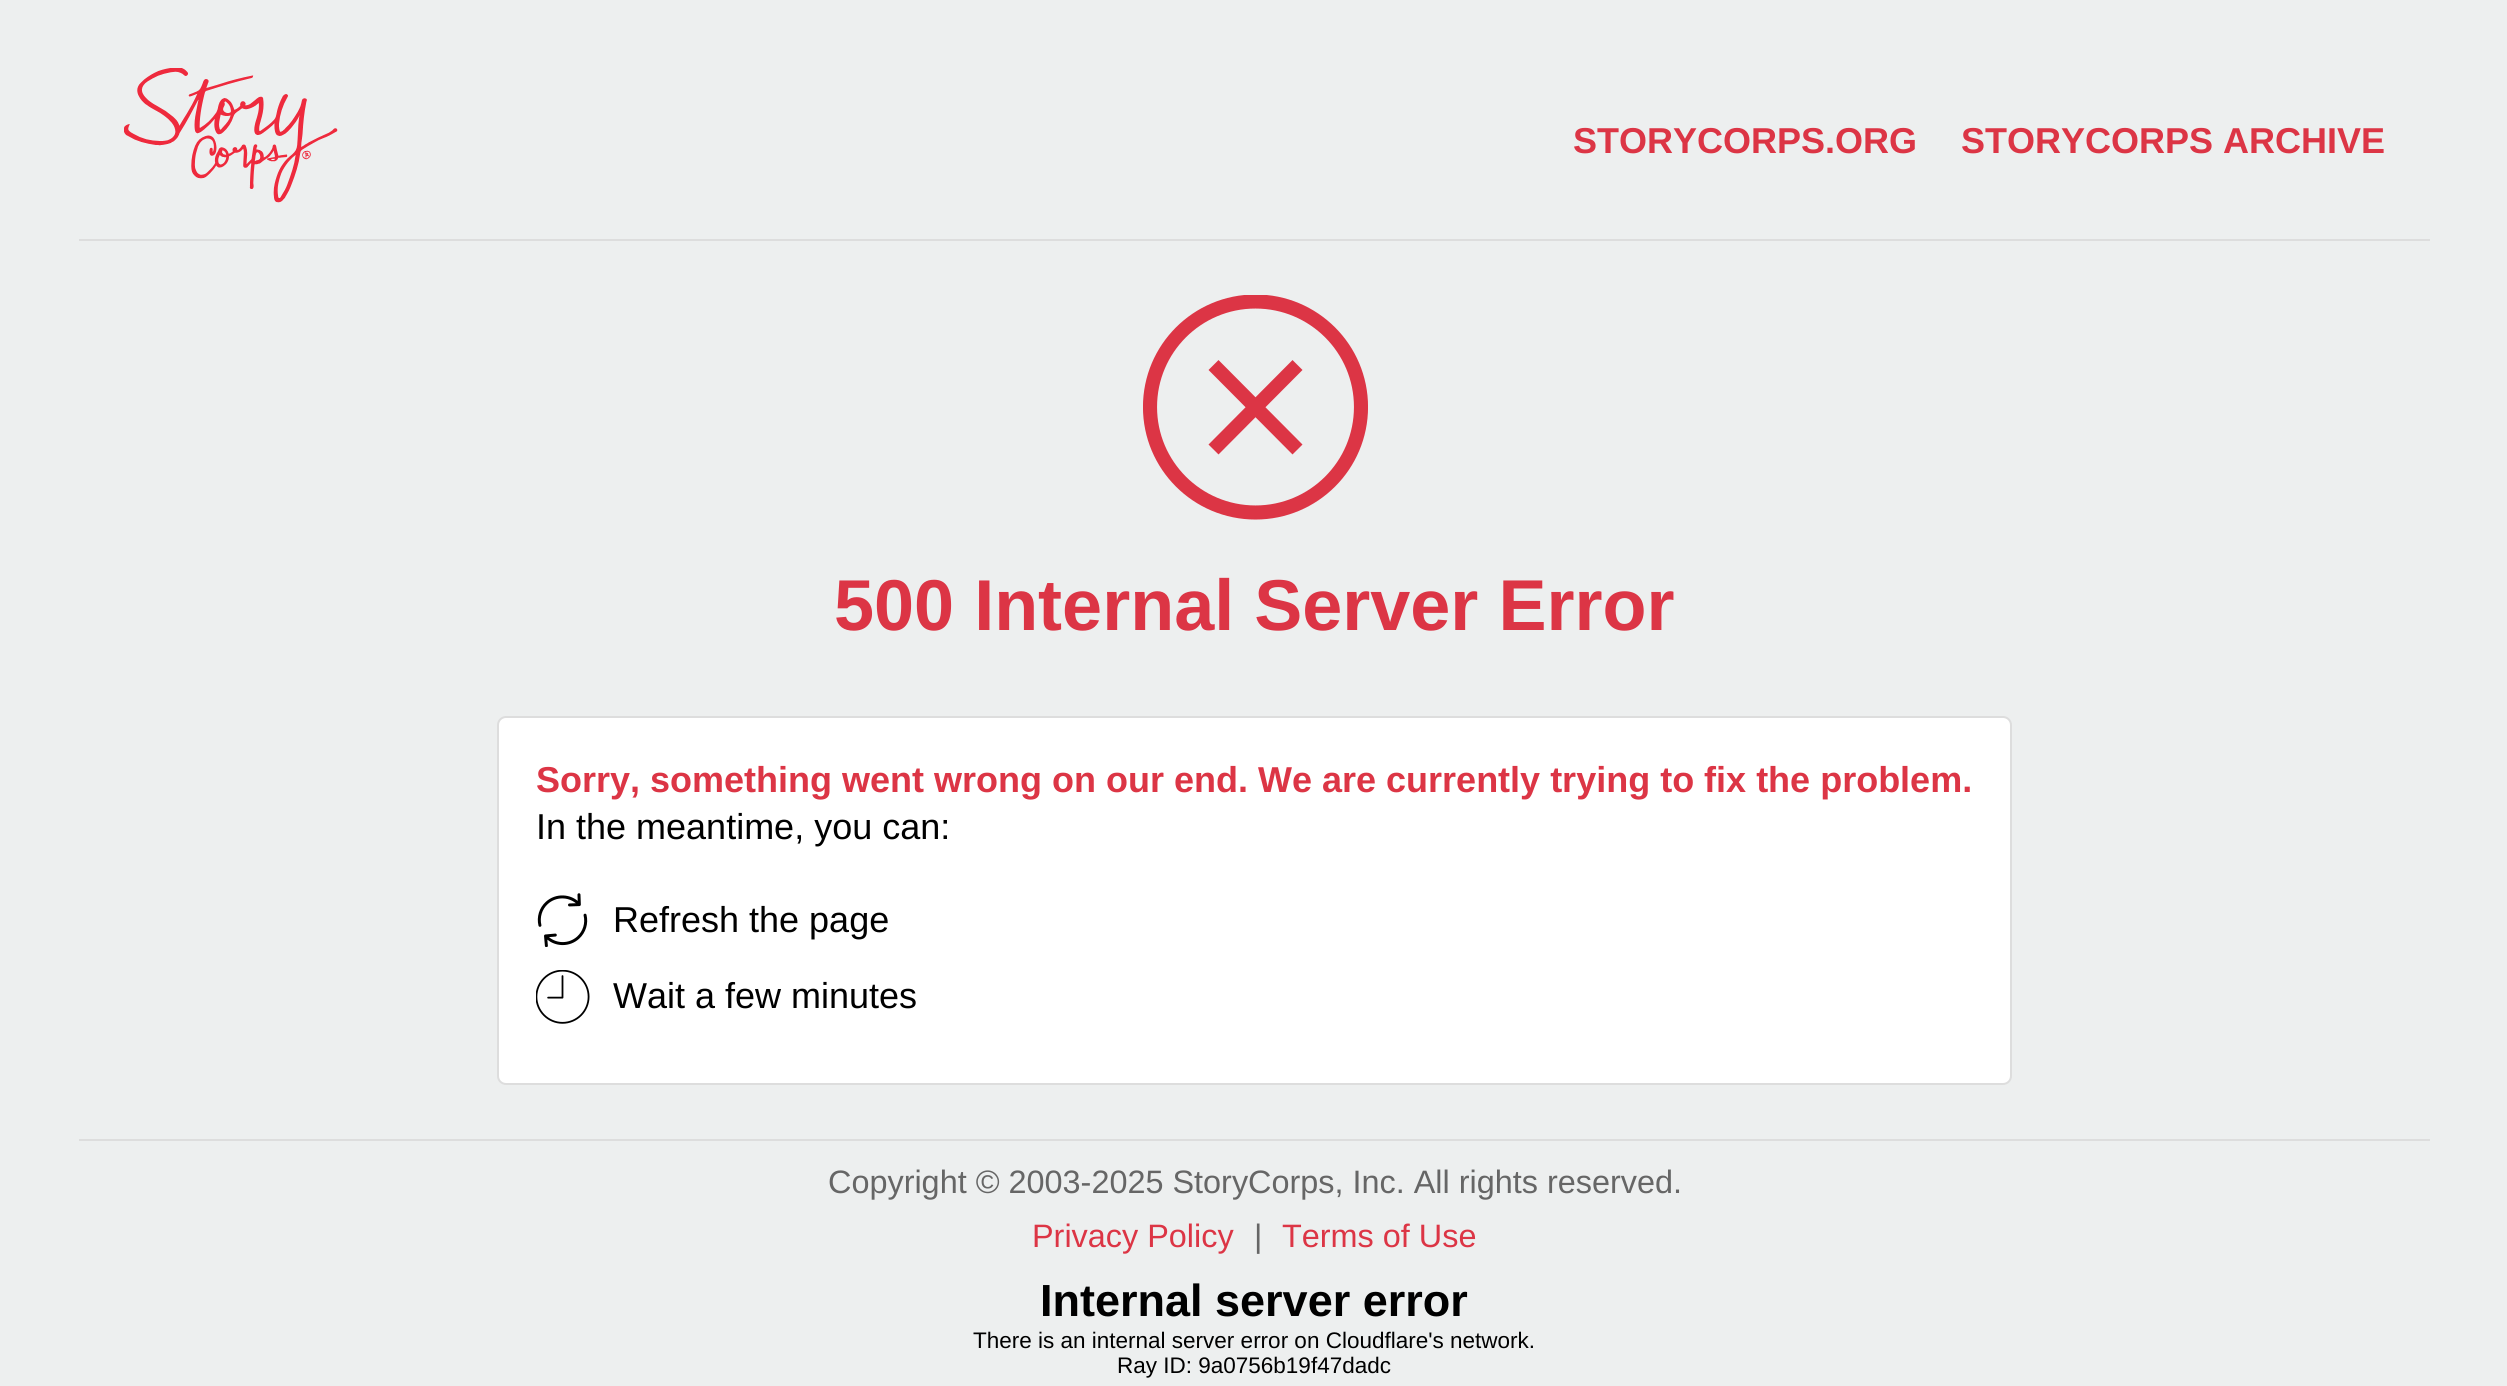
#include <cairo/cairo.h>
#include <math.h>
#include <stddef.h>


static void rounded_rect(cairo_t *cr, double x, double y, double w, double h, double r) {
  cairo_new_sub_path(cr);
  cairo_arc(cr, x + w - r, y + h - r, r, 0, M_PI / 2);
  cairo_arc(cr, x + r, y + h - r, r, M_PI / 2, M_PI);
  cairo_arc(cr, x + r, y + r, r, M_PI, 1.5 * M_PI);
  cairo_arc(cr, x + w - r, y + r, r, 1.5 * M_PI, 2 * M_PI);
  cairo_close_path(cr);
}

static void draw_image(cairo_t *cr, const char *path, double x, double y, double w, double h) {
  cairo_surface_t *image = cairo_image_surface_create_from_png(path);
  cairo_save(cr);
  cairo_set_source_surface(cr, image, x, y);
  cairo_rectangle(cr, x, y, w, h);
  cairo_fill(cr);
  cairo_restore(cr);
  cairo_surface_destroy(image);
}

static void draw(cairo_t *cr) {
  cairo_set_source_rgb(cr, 237 / 255.0, 239 / 255.0, 239 / 255.0);
  cairo_paint(cr);
  cairo_set_source_rgb(cr, 221 / 255.0, 221 / 255.0, 221 / 255.0);
  cairo_rectangle(cr, 79, 239, 2351, 2);
  cairo_fill(cr);
  draw_image(cr, "images/1.png", 124, 68, 214, 135);
  cairo_save(cr);
  cairo_rectangle(cr, 1143, 295, 225, 225);
  cairo_clip(cr);
  cairo_arc(cr, 1255.5, 407, 105.5, 0, 2 * M_PI);
  cairo_set_source_rgb(cr, 220 / 255.0, 53 / 255.0, 69 / 255.0);
  cairo_set_line_width(cr, 14.1);
  cairo_stroke(cr);
  cairo_restore(cr);
  cairo_new_path(cr);
  cairo_move_to(cr, 1213.5, 365);
  cairo_line_to(cr, 1297.5, 449.5);
  cairo_set_source_rgb(cr, 220 / 255.0, 53 / 255.0, 69 / 255.0);
  cairo_set_line_width(cr, 14.1);
  cairo_stroke(cr);
  cairo_new_path(cr);
  cairo_move_to(cr, 1297.5, 365);
  cairo_line_to(cr, 1213.5, 449.5);
  cairo_stroke(cr);
  cairo_set_source_rgb(cr, 1, 1, 1);
  rounded_rect(cr, 498, 717, 1513, 367, 8);
  cairo_fill_preserve(cr);
  cairo_set_source_rgb(cr, 221 / 255.0, 221 / 255.0, 221 / 255.0);
  cairo_set_line_width(cr, 2);
  cairo_stroke(cr);
  draw_image(cr, "images/2.png", 537, 893, 51, 54);
  draw_image(cr, "images/3.png", 536, 970, 54, 54);
  cairo_rectangle(cr, 79, 1139, 2351, 2);
  cairo_fill(cr);
  cairo_select_font_face(cr, "Liberation Sans", CAIRO_FONT_SLANT_NORMAL, CAIRO_FONT_WEIGHT_BOLD);
  cairo_set_font_size(cr, 36);
  cairo_set_source_rgb(cr, 220 / 255.0, 53 / 255.0, 69 / 255.0);
  cairo_move_to(cr, 1573, 153);
  cairo_show_text(cr, "STORYCORPS.ORG");
  cairo_move_to(cr, 1961, 153);
  cairo_show_text(cr, "STORYCORPS ARCHIVE");
  cairo_set_font_size(cr, 72);
  cairo_move_to(cr, 834, 630);
  cairo_show_text(cr, "500 Internal Server Error");
  cairo_set_font_size(cr, 36);
  cairo_move_to(cr, 536, 792);
  cairo_show_text(cr, "Sorry, something went wrong on our end. We are currently trying to fix the problem.");
  cairo_select_font_face(cr, "Liberation Sans", CAIRO_FONT_SLANT_NORMAL, CAIRO_FONT_WEIGHT_NORMAL);
  cairo_set_source_rgb(cr, 0, 0, 0);
  cairo_move_to(cr, 536, 839);
  cairo_show_text(cr, "In the meantime, you can:");
  cairo_move_to(cr, 613, 932);
  cairo_show_text(cr, "Refresh the page");
  cairo_move_to(cr, 613, 1008);
  cairo_show_text(cr, "Wait a few minutes");
  cairo_set_font_size(cr, 32.4);
  cairo_set_source_rgb(cr, 102 / 255.0, 102 / 255.0, 102 / 255.0);
  cairo_move_to(cr, 828, 1193);
  cairo_show_text(cr, "Copyright © 2003-2025 StoryCorps, Inc. All rights reserved.");
  cairo_set_source_rgb(cr, 220 / 255.0, 53 / 255.0, 69 / 255.0);
  cairo_move_to(cr, 1032, 1247);
  cairo_show_text(cr, "Privacy Policy");
  cairo_set_source_rgb(cr, 102 / 255.0, 102 / 255.0, 102 / 255.0);
  cairo_move_to(cr, 1254, 1247);
  cairo_show_text(cr, "|");
  cairo_set_source_rgb(cr, 220 / 255.0, 53 / 255.0, 69 / 255.0);
  cairo_move_to(cr, 1282, 1247);
  cairo_show_text(cr, "Terms of Use");
  cairo_select_font_face(cr, "Liberation Sans", CAIRO_FONT_SLANT_NORMAL, CAIRO_FONT_WEIGHT_BOLD);
  cairo_set_font_size(cr, 45);
  cairo_set_source_rgb(cr, 0, 0, 0);
  cairo_move_to(cr, 1040, 1316);
  cairo_show_text(cr, "Internal server error");
  cairo_select_font_face(cr, "Liberation Sans", CAIRO_FONT_SLANT_NORMAL, CAIRO_FONT_WEIGHT_NORMAL);
  cairo_set_font_size(cr, 22.5);
  cairo_move_to(cr, 973, 1348);
  cairo_show_text(cr, "There is an internal server error on Cloudflare's network.");
  cairo_move_to(cr, 1117, 1373);
  cairo_show_text(cr, "Ray ID: 9a0756b19f47dadc");
}

int main(void) {
  cairo_surface_t *surface = cairo_image_surface_create(CAIRO_FORMAT_RGB24, 2507, 1386);
  cairo_t *cr = cairo_create(surface);
  cairo_font_options_t *options = cairo_font_options_create();
  cairo_font_options_set_hint_metrics(options, CAIRO_HINT_METRICS_OFF);
  cairo_font_options_set_hint_style(options, CAIRO_HINT_STYLE_NONE);
  cairo_set_font_options(cr, options);
  cairo_set_miter_limit(cr, 4);
  draw(cr);
  cairo_surface_write_to_png(surface, "out.png");
  cairo_font_options_destroy(options);
  cairo_destroy(cr);
  cairo_surface_destroy(surface);
  return 0;
}
